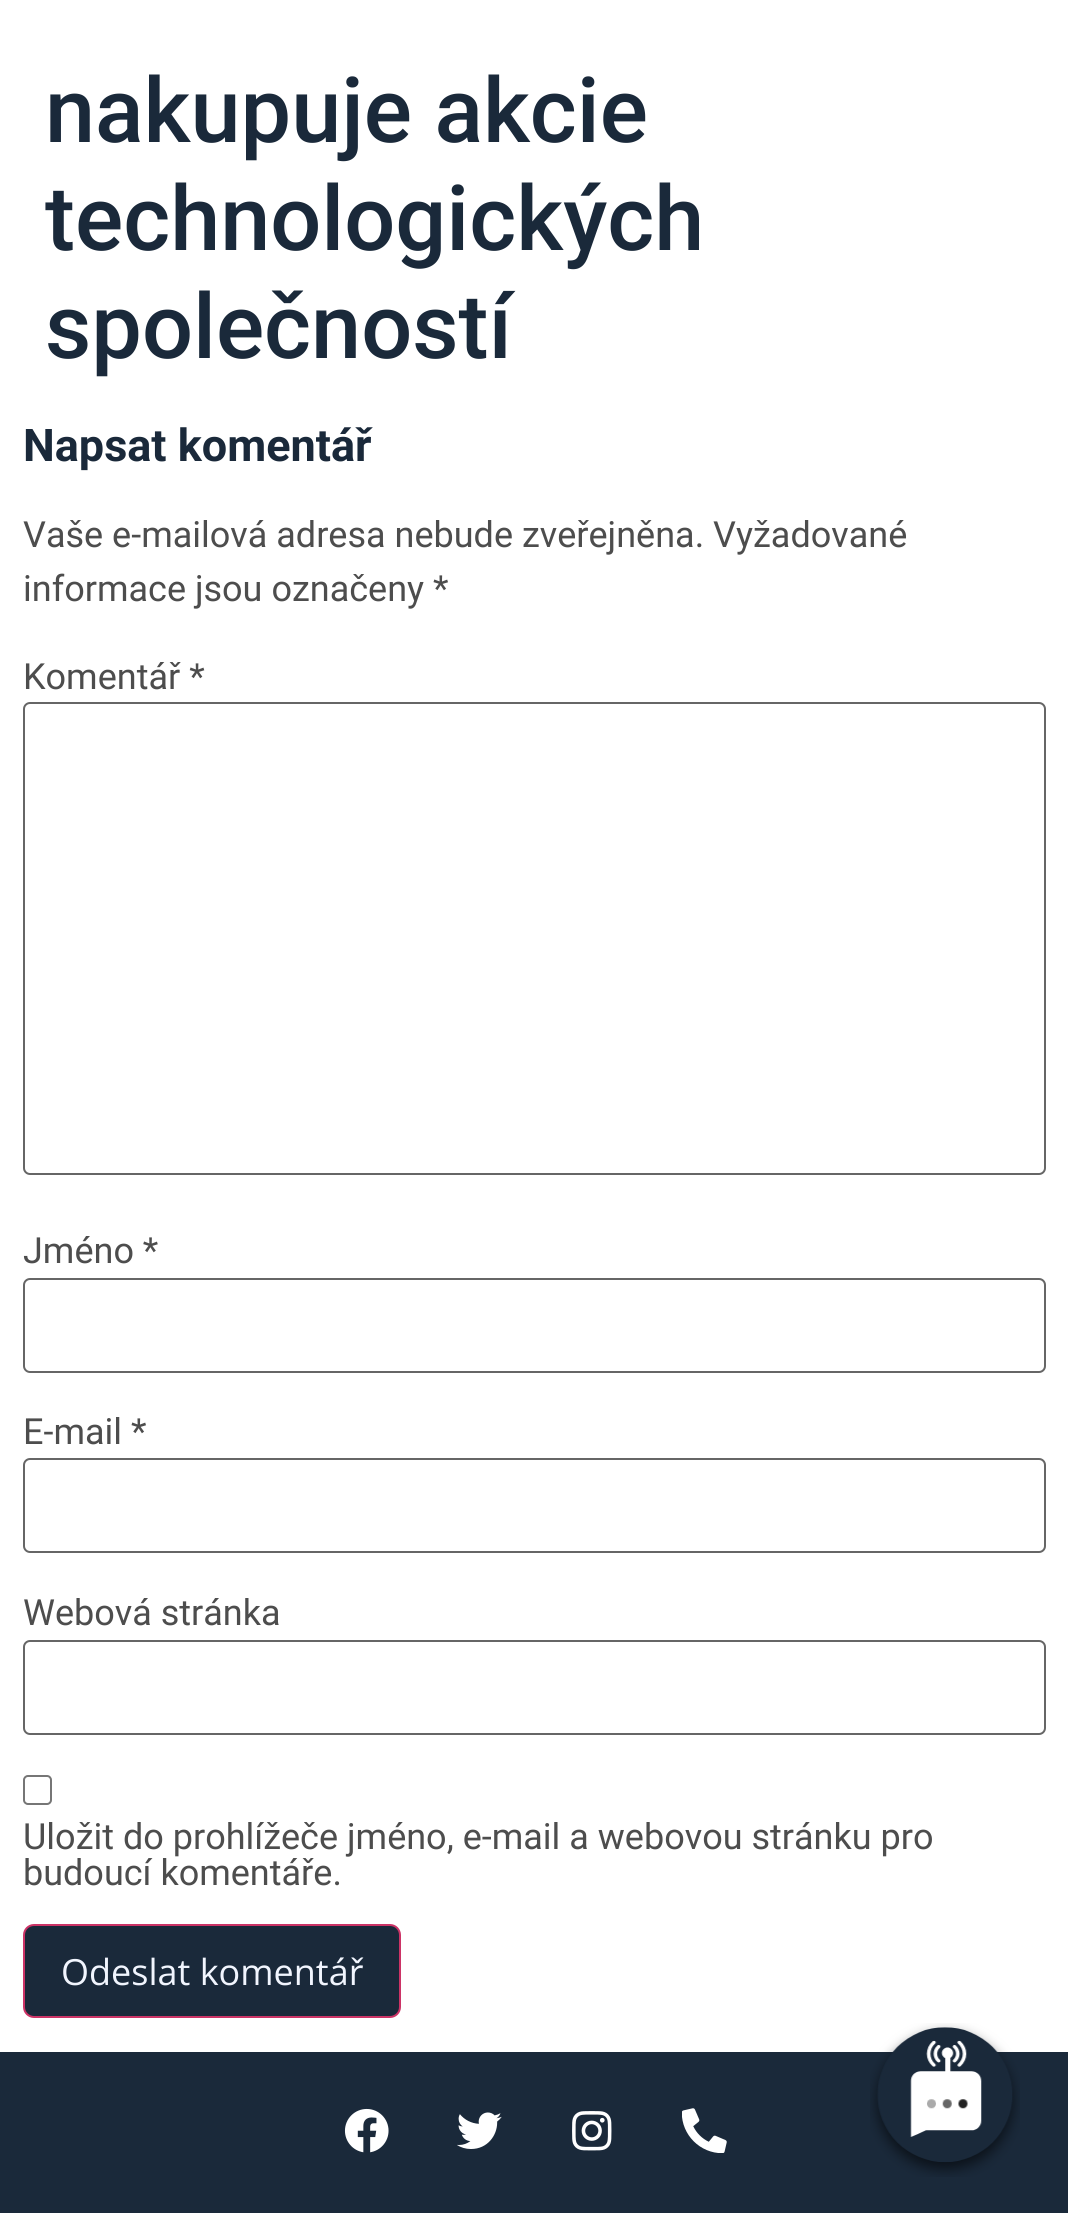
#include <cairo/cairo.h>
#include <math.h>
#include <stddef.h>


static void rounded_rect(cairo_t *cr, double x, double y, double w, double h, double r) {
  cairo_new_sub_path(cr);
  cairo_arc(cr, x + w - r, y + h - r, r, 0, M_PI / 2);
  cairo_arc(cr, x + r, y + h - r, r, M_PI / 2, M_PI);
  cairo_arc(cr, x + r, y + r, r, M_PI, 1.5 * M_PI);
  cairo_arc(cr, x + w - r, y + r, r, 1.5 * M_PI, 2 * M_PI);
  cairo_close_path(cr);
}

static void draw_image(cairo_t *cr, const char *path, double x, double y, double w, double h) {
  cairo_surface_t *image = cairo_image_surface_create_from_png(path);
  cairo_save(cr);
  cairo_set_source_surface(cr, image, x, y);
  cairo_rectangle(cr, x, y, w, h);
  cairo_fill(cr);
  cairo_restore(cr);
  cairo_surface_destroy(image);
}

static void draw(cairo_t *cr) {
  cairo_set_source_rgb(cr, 1, 1, 1);
  cairo_paint(cr);
  rounded_rect(cr, 24, 703, 1021, 471, 6);
  cairo_set_source_rgb(cr, 102 / 255.0, 102 / 255.0, 102 / 255.0);
  cairo_stroke(cr);
  rounded_rect(cr, 24, 1279, 1021, 93, 6);
  cairo_stroke(cr);
  rounded_rect(cr, 24, 1459, 1021, 93, 6);
  cairo_stroke(cr);
  rounded_rect(cr, 24, 1641, 1021, 93, 6);
  cairo_stroke(cr);
  rounded_rect(cr, 24, 1776, 27, 28, 4);
  cairo_set_source_rgb(cr, 118 / 255.0, 118 / 255.0, 118 / 255.0);
  cairo_stroke(cr);
  cairo_set_source_rgb(cr, 26 / 255.0, 41 / 255.0, 58 / 255.0);
  rounded_rect(cr, 24, 1925, 376, 92, 10);
  cairo_fill_preserve(cr);
  cairo_set_source_rgb(cr, 204 / 255.0, 51 / 255.0, 102 / 255.0);
  cairo_stroke(cr);
  cairo_set_source_rgb(cr, 26 / 255.0, 41 / 255.0, 58 / 255.0);
  cairo_rectangle(cr, 0, 2052, 1068, 161);
  cairo_fill(cr);
  draw_image(cr, "images/1.png", 870, 2023, 150, 154);
  draw_image(cr, "images/2.png", 344, 2108, 45, 45);
  draw_image(cr, "images/3.png", 457, 2112, 45, 37);
  draw_image(cr, "images/4.png", 572, 2111, 40, 40);
  draw_image(cr, "images/5.png", 682, 2108, 45, 45);
  cairo_select_font_face(cr, "Roboto Medium", CAIRO_FONT_SLANT_NORMAL, CAIRO_FONT_WEIGHT_NORMAL);
  cairo_set_font_size(cr, 90);
  cairo_move_to(cr, 45, 142);
  cairo_show_text(cr, "nakupuje akcie");
  cairo_move_to(cr, 45, 250);
  cairo_show_text(cr, "technologických");
  cairo_move_to(cr, 45, 358);
  cairo_show_text(cr, "společností");
  cairo_select_font_face(cr, "Roboto", CAIRO_FONT_SLANT_NORMAL, CAIRO_FONT_WEIGHT_BOLD);
  cairo_set_font_size(cr, 45);
  cairo_move_to(cr, 23, 461);
  cairo_show_text(cr, "Napsat komentář");
  cairo_select_font_face(cr, "Roboto", CAIRO_FONT_SLANT_NORMAL, CAIRO_FONT_WEIGHT_NORMAL);
  cairo_set_font_size(cr, 36);
  cairo_set_source_rgb(cr, 77 / 255.0, 77 / 255.0, 77 / 255.0);
  cairo_move_to(cr, 23, 547);
  cairo_show_text(cr, "Vaše e-mailová adresa nebude zveřejněna. Vyžadované");
  cairo_move_to(cr, 23, 601);
  cairo_show_text(cr, "informace jsou označeny *");
  cairo_move_to(cr, 23, 689);
  cairo_show_text(cr, "Komentář *");
  cairo_move_to(cr, 23, 1263);
  cairo_show_text(cr, "Jméno *");
  cairo_move_to(cr, 23, 1444);
  cairo_show_text(cr, "E-mail *");
  cairo_move_to(cr, 23, 1625);
  cairo_show_text(cr, "Webová stránka");
  cairo_move_to(cr, 23, 1849);
  cairo_show_text(cr, "Uložit do prohlížeče jméno, e-mail a webovou stránku pro");
  cairo_move_to(cr, 23, 1885);
  cairo_show_text(cr, "budoucí komentáře.");
  cairo_select_font_face(cr, "Open Sans", CAIRO_FONT_SLANT_NORMAL, CAIRO_FONT_WEIGHT_NORMAL);
  cairo_set_source_rgb(cr, 241 / 255.0, 245 / 255.0, 254 / 255.0);
  cairo_move_to(cr, 61, 1985);
  cairo_show_text(cr, "Odeslat komentář");
}

int main(void) {
  cairo_surface_t *surface = cairo_image_surface_create(CAIRO_FORMAT_RGB24, 1068, 2213);
  cairo_t *cr = cairo_create(surface);
  cairo_font_options_t *options = cairo_font_options_create();
  cairo_font_options_set_hint_metrics(options, CAIRO_HINT_METRICS_OFF);
  cairo_font_options_set_hint_style(options, CAIRO_HINT_STYLE_NONE);
  cairo_set_font_options(cr, options);
  cairo_set_miter_limit(cr, 4);
  draw(cr);
  cairo_surface_write_to_png(surface, "out.png");
  cairo_font_options_destroy(options);
  cairo_destroy(cr);
  cairo_surface_destroy(surface);
  return 0;
}
